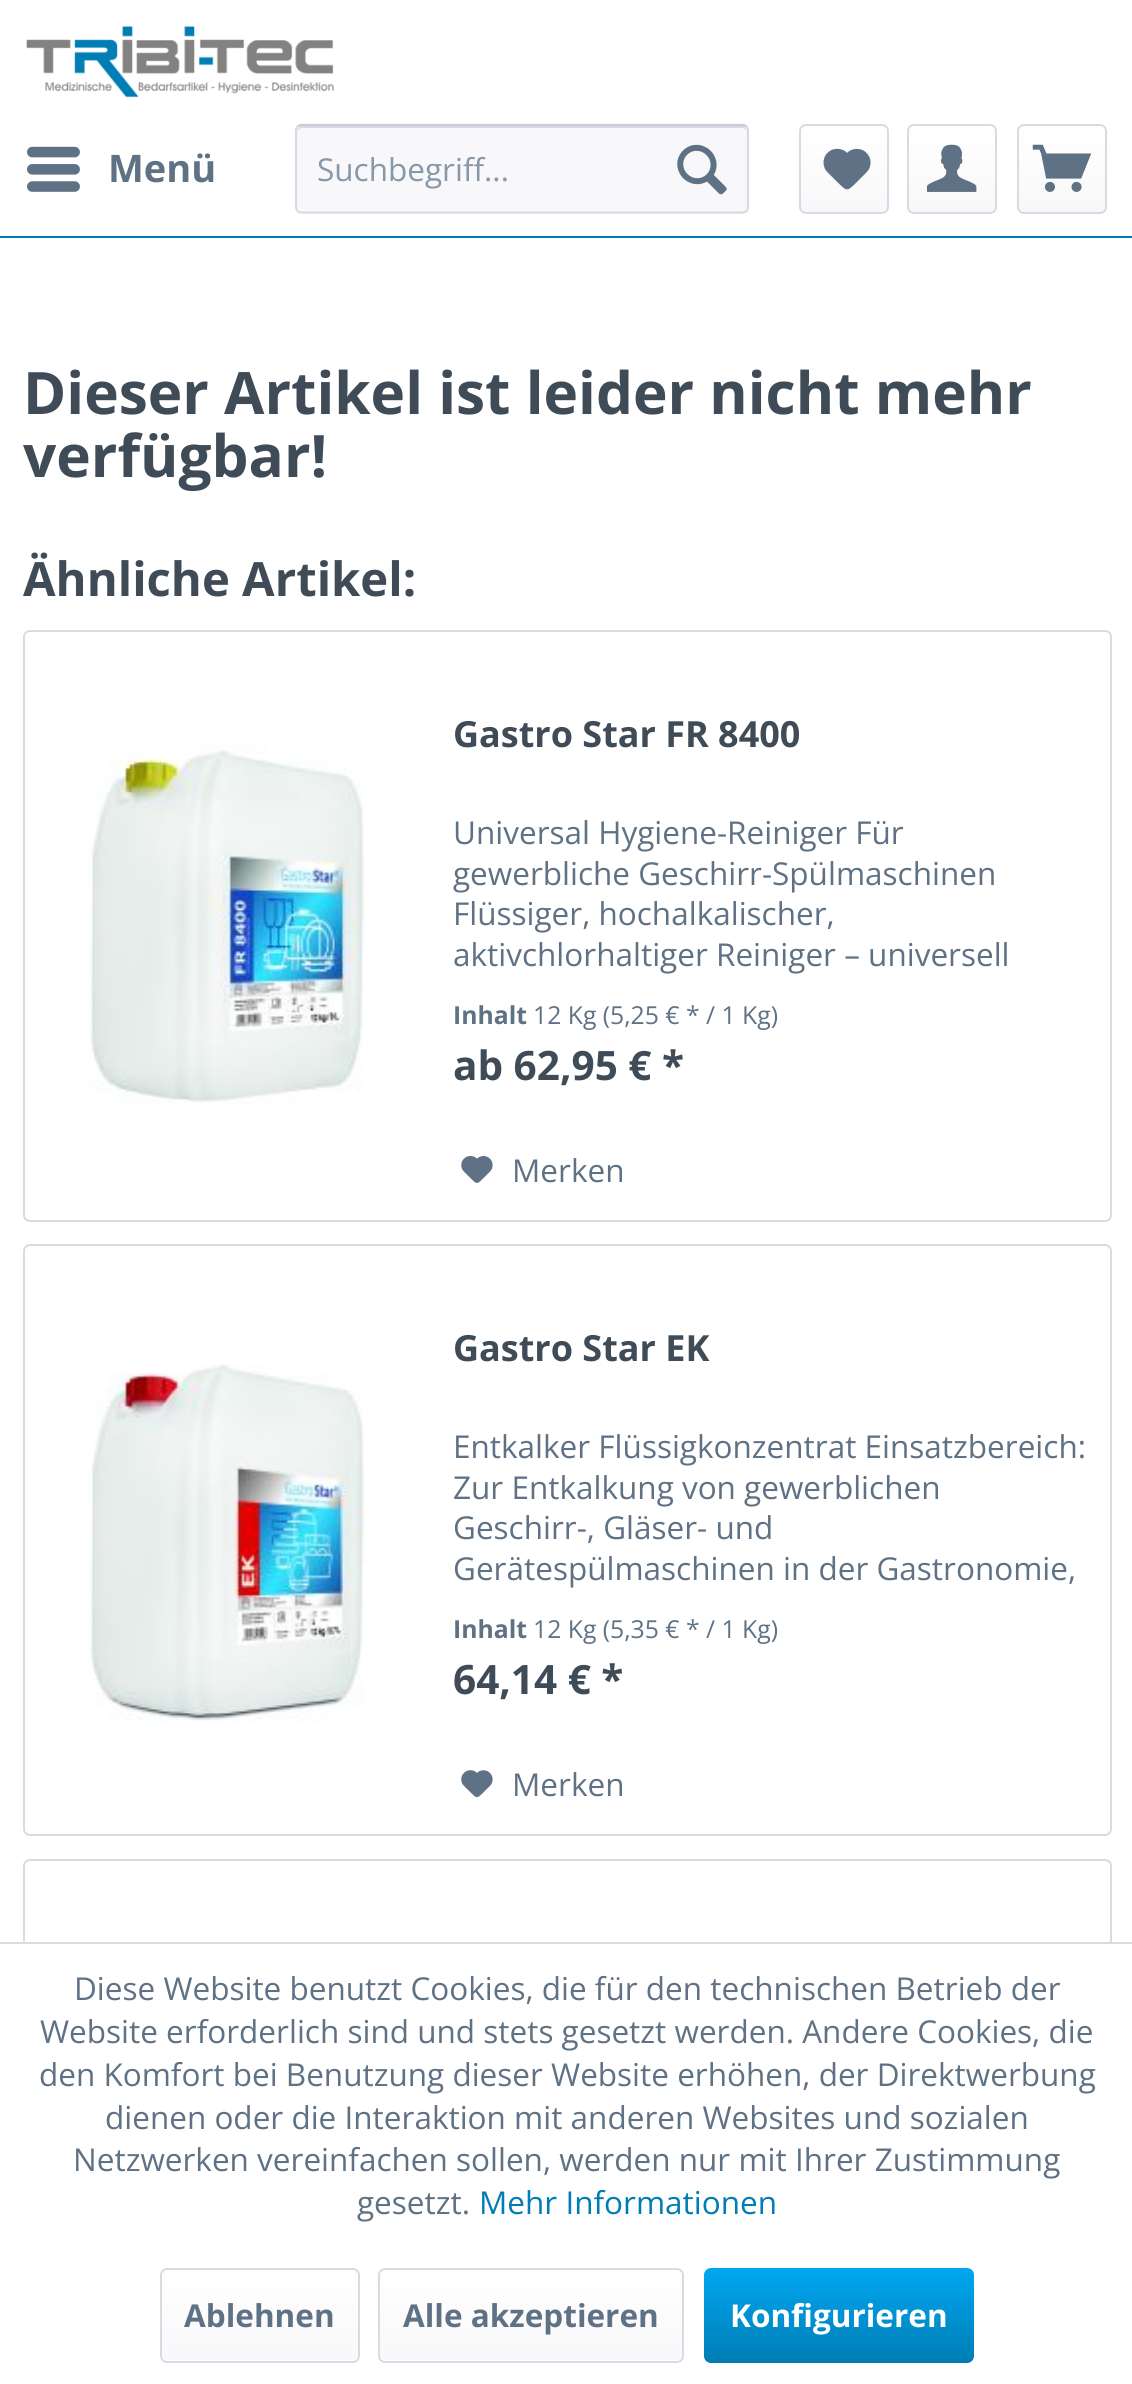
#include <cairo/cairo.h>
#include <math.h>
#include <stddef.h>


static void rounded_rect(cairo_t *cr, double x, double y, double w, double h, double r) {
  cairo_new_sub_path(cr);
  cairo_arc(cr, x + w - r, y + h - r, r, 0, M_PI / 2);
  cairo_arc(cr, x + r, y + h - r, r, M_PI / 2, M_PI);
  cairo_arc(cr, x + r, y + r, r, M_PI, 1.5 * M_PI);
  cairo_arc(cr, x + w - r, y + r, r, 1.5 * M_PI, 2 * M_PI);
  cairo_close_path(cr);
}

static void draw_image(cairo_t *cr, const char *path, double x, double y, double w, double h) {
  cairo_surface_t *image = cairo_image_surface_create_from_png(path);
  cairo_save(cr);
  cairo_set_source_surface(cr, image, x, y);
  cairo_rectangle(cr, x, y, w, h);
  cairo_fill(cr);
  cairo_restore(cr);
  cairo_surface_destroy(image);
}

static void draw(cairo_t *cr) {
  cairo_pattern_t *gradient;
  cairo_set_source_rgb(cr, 1, 1, 1);
  cairo_paint(cr);
  cairo_set_source_rgb(cr, 0, 125 / 255.0, 180 / 255.0);
  cairo_rectangle(cr, 0, 236, 1132, 2);
  cairo_fill(cr);
  draw_image(cr, "images/1.png", 26, 26, 308, 72);
  draw_image(cr, "images/2.png", 27, 146, 53, 46);
  cairo_set_source_rgb(cr, 248 / 255.0, 248 / 255.0, 250 / 255.0);
  rounded_rect(cr, 295, 124, 454, 90, 7);
  cairo_fill(cr);
  cairo_set_source_rgb(cr, 218 / 255.0, 218 / 255.0, 229 / 255.0);
  cairo_new_path(cr);
  cairo_move_to(cr, 302, 128);
  cairo_line_to(cr, 742, 128);
  cairo_curve_to(cr, 745, 128, 747, 130, 747, 133);
  cairo_curve_to(cr, 747, 130, 746, 126, 742, 126);
  cairo_line_to(cr, 302, 126);
  cairo_curve_to(cr, 298, 126, 297, 130, 297, 133);
  cairo_curve_to(cr, 297, 130, 299, 128, 302, 128);
  cairo_close_path(cr);
  cairo_fill(cr);
  cairo_new_path(cr);
  cairo_move_to(cr, 297.5, 126.5);
  cairo_curve_to(cr, 298.5, 125.5, 300, 125, 301.5, 125);
  cairo_line_to(cr, 742.5, 125);
  cairo_curve_to(cr, 744, 125, 745.5, 125.5, 746.5, 126.5);
  cairo_set_source_rgb(cr, 203 / 255.0, 203 / 255.0, 219 / 255.0);
  cairo_set_line_width(cr, 2.2);
  cairo_stroke(cr);
  cairo_new_path(cr);
  cairo_move_to(cr, 746.5, 126.5);
  cairo_curve_to(cr, 747.5, 127.5, 748, 129, 748, 130.5);
  cairo_line_to(cr, 748, 207);
  cairo_curve_to(cr, 748, 208.5, 747.5, 210, 746.5, 211);
  cairo_curve_to(cr, 745.5, 212, 744, 212.5, 742.5, 212.5);
  cairo_line_to(cr, 301.5, 212.5);
  cairo_curve_to(cr, 300, 212.5, 298.5, 212, 297.5, 211);
  cairo_curve_to(cr, 296.5, 210, 296, 208.5, 296, 207);
  cairo_line_to(cr, 296, 130.5);
  cairo_curve_to(cr, 296, 129, 296.5, 127.5, 297.5, 126.5);
  cairo_set_source_rgb(cr, 218 / 255.0, 218 / 255.0, 229 / 255.0);
  cairo_stroke(cr);
  draw_image(cr, "images/3.png", 677, 144, 50, 51);
  gradient = cairo_pattern_create_linear(844, 126, 844, 212);
  cairo_pattern_add_color_stop_rgba(gradient, 0, 1, 1, 1, 1);
  cairo_pattern_add_color_stop_rgba(gradient, 1, 248 / 255.0, 248 / 255.0, 250 / 255.0, 1);
  cairo_set_source(cr, gradient);
  cairo_pattern_destroy(gradient);
  rounded_rect(cr, 801, 126, 86, 86, 5);
  cairo_fill(cr);
  rounded_rect(cr, 800, 125, 88, 88, 6);
  cairo_set_source_rgb(cr, 218 / 255.0, 218 / 255.0, 229 / 255.0);
  cairo_set_line_width(cr, 2);
  cairo_stroke(cr);
  draw_image(cr, "images/4.png", 823, 148, 48, 42);
  gradient = cairo_pattern_create_linear(952, 126, 952, 212);
  cairo_pattern_add_color_stop_rgba(gradient, 0, 1, 1, 1, 1);
  cairo_pattern_add_color_stop_rgba(gradient, 1, 248 / 255.0, 248 / 255.0, 250 / 255.0, 1);
  cairo_set_source(cr, gradient);
  cairo_pattern_destroy(gradient);
  rounded_rect(cr, 909, 126, 86, 86, 5);
  cairo_fill(cr);
  rounded_rect(cr, 908, 125, 88, 88, 6);
  cairo_set_source_rgb(cr, 218 / 255.0, 218 / 255.0, 229 / 255.0);
  cairo_stroke(cr);
  draw_image(cr, "images/5.png", 927, 144, 50, 48);
  gradient = cairo_pattern_create_linear(1062, 126, 1062, 212);
  cairo_pattern_add_color_stop_rgba(gradient, 0, 1, 1, 1, 1);
  cairo_pattern_add_color_stop_rgba(gradient, 1, 248 / 255.0, 248 / 255.0, 250 / 255.0, 1);
  cairo_set_source(cr, gradient);
  cairo_pattern_destroy(gradient);
  rounded_rect(cr, 1019, 126, 86, 86, 5);
  cairo_fill(cr);
  rounded_rect(cr, 1018, 125, 88, 88, 6);
  cairo_set_source_rgb(cr, 218 / 255.0, 218 / 255.0, 229 / 255.0);
  cairo_stroke(cr);
  draw_image(cr, "images/6.png", 1032, 144, 60, 48);
  rounded_rect(cr, 24, 631, 1087, 590, 6);
  cairo_stroke(cr);
  draw_image(cr, "images/7.png", 89, 745, 276, 360);
  draw_image(cr, "images/8.png", 461, 1155, 32, 28);
  rounded_rect(cr, 24, 1245, 1087, 590, 6);
  cairo_stroke(cr);
  draw_image(cr, "images/9.png", 89, 1364, 276, 358);
  draw_image(cr, "images/10.png", 461, 1770, 32, 28);
  rounded_rect(cr, 24, 1860, 1087, 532, 6);
  cairo_stroke(cr);
  cairo_set_source_rgb(cr, 1, 1, 1);
  cairo_rectangle(cr, 23, 1944, 1089, 440);
  cairo_fill(cr);
  cairo_set_source_rgb(cr, 218 / 255.0, 218 / 255.0, 229 / 255.0);
  cairo_rectangle(cr, 0, 1942, 1132, 2);
  cairo_fill(cr);
  gradient = cairo_pattern_create_linear(260, 2270, 260, 2360);
  cairo_pattern_add_color_stop_rgba(gradient, 0, 1, 1, 1, 1);
  cairo_pattern_add_color_stop_rgba(gradient, 1, 248 / 255.0, 248 / 255.0, 250 / 255.0, 1);
  cairo_set_source(cr, gradient);
  cairo_pattern_destroy(gradient);
  rounded_rect(cr, 162, 2270, 196, 90, 5);
  cairo_fill(cr);
  rounded_rect(cr, 161, 2269, 198, 93, 6);
  cairo_set_source_rgb(cr, 218 / 255.0, 218 / 255.0, 229 / 255.0);
  cairo_stroke(cr);
  gradient = cairo_pattern_create_linear(531, 2270, 531, 2360);
  cairo_pattern_add_color_stop_rgba(gradient, 0, 1, 1, 1, 1);
  cairo_pattern_add_color_stop_rgba(gradient, 1, 248 / 255.0, 248 / 255.0, 250 / 255.0, 1);
  cairo_set_source(cr, gradient);
  cairo_pattern_destroy(gradient);
  rounded_rect(cr, 380, 2270, 302, 90, 5);
  cairo_fill(cr);
  rounded_rect(cr, 379, 2269, 304, 93, 6);
  cairo_set_source_rgb(cr, 218 / 255.0, 218 / 255.0, 229 / 255.0);
  cairo_stroke(cr);
  gradient = cairo_pattern_create_linear(839, 2268, 839, 2363);
  cairo_pattern_add_color_stop_rgba(gradient, 0, 0, 167 / 255.0, 241 / 255.0, 1);
  cairo_pattern_add_color_stop_rgba(gradient, 1, 0, 125 / 255.0, 180 / 255.0, 1);
  cairo_set_source(cr, gradient);
  cairo_pattern_destroy(gradient);
  rounded_rect(cr, 704, 2268, 270, 95, 7);
  cairo_fill(cr);
  cairo_select_font_face(cr, "Open Sans", CAIRO_FONT_SLANT_NORMAL, CAIRO_FONT_WEIGHT_BOLD);
  cairo_set_font_size(cr, 38);
  cairo_set_source_rgb(cr, 95 / 255.0, 114 / 255.0, 133 / 255.0);
  cairo_move_to(cr, 108, 182);
  cairo_show_text(cr, "Menü");
  cairo_select_font_face(cr, "Open Sans", CAIRO_FONT_SLANT_NORMAL, CAIRO_FONT_WEIGHT_NORMAL);
  cairo_set_font_size(cr, 31.5);
  cairo_set_source_rgb(cr, 135 / 255.0, 152 / 255.0, 169 / 255.0);
  cairo_move_to(cr, 317, 181);
  cairo_show_text(cr, "Suchbegriff...");
  cairo_select_font_face(cr, "Open Sans", CAIRO_FONT_SLANT_NORMAL, CAIRO_FONT_WEIGHT_BOLD);
  cairo_set_font_size(cr, 58.5);
  cairo_set_source_rgb(cr, 63 / 255.0, 76 / 255.0, 88 / 255.0);
  cairo_move_to(cr, 23, 414);
  cairo_show_text(cr, "Dieser Artikel ist leider nicht mehr");
  cairo_move_to(cr, 23, 477);
  cairo_show_text(cr, "verfügbar!");
  cairo_set_font_size(cr, 47.25);
  cairo_move_to(cr, 23, 596);
  cairo_show_text(cr, "Ähnliche Artikel:");
  cairo_set_font_size(cr, 36);
  cairo_move_to(cr, 453, 747);
  cairo_show_text(cr, "Gastro Star FR 8400");
  cairo_select_font_face(cr, "Open Sans", CAIRO_FONT_SLANT_NORMAL, CAIRO_FONT_WEIGHT_NORMAL);
  cairo_set_font_size(cr, 31.5);
  cairo_set_source_rgb(cr, 95 / 255.0, 114 / 255.0, 133 / 255.0);
  cairo_move_to(cr, 453, 844);
  cairo_show_text(cr, "Universal Hygiene-Reiniger Für");
  cairo_move_to(cr, 453, 885);
  cairo_show_text(cr, "gewerbliche Geschirr-Spülmaschinen");
  cairo_move_to(cr, 453, 925);
  cairo_show_text(cr, "Flüssiger, hochalkalischer,");
  cairo_move_to(cr, 453, 966);
  cairo_show_text(cr, "aktivchlorhaltiger Reiniger – universell");
  cairo_select_font_face(cr, "Open Sans", CAIRO_FONT_SLANT_NORMAL, CAIRO_FONT_WEIGHT_BOLD);
  cairo_set_font_size(cr, 24.75);
  cairo_move_to(cr, 453, 1024);
  cairo_show_text(cr, "Inhalt");
  cairo_select_font_face(cr, "Open Sans", CAIRO_FONT_SLANT_NORMAL, CAIRO_FONT_WEIGHT_NORMAL);
  cairo_move_to(cr, 533, 1024);
  cairo_show_text(cr, "12 Kg (5,25 € * / 1 Kg)");
  cairo_select_font_face(cr, "Open Sans", CAIRO_FONT_SLANT_NORMAL, CAIRO_FONT_WEIGHT_BOLD);
  cairo_set_font_size(cr, 40.5);
  cairo_set_source_rgb(cr, 63 / 255.0, 76 / 255.0, 88 / 255.0);
  cairo_move_to(cr, 453, 1080);
  cairo_show_text(cr, "ab 62,95 € *");
  cairo_select_font_face(cr, "Open Sans", CAIRO_FONT_SLANT_NORMAL, CAIRO_FONT_WEIGHT_NORMAL);
  cairo_set_font_size(cr, 31.5);
  cairo_set_source_rgb(cr, 95 / 255.0, 114 / 255.0, 133 / 255.0);
  cairo_move_to(cr, 512, 1182);
  cairo_show_text(cr, "Merken");
  cairo_select_font_face(cr, "Open Sans", CAIRO_FONT_SLANT_NORMAL, CAIRO_FONT_WEIGHT_BOLD);
  cairo_set_font_size(cr, 36);
  cairo_set_source_rgb(cr, 63 / 255.0, 76 / 255.0, 88 / 255.0);
  cairo_move_to(cr, 453, 1361);
  cairo_show_text(cr, "Gastro Star EK");
  cairo_select_font_face(cr, "Open Sans", CAIRO_FONT_SLANT_NORMAL, CAIRO_FONT_WEIGHT_NORMAL);
  cairo_set_font_size(cr, 31.5);
  cairo_set_source_rgb(cr, 95 / 255.0, 114 / 255.0, 133 / 255.0);
  cairo_move_to(cr, 453, 1458);
  cairo_show_text(cr, "Entkalker Flüssigkonzentrat Einsatzbereich:");
  cairo_move_to(cr, 453, 1499);
  cairo_show_text(cr, "Zur Entkalkung von gewerblichen");
  cairo_move_to(cr, 453, 1539);
  cairo_show_text(cr, "Geschirr-, Gläser- und");
  cairo_move_to(cr, 453, 1580);
  cairo_show_text(cr, "Gerätespülmaschinen in der Gastronomie,");
  cairo_select_font_face(cr, "Open Sans", CAIRO_FONT_SLANT_NORMAL, CAIRO_FONT_WEIGHT_BOLD);
  cairo_set_font_size(cr, 24.75);
  cairo_move_to(cr, 453, 1638);
  cairo_show_text(cr, "Inhalt");
  cairo_select_font_face(cr, "Open Sans", CAIRO_FONT_SLANT_NORMAL, CAIRO_FONT_WEIGHT_NORMAL);
  cairo_move_to(cr, 533, 1638);
  cairo_show_text(cr, "12 Kg (5,35 € * / 1 Kg)");
  cairo_select_font_face(cr, "Open Sans", CAIRO_FONT_SLANT_NORMAL, CAIRO_FONT_WEIGHT_BOLD);
  cairo_set_font_size(cr, 40.5);
  cairo_set_source_rgb(cr, 63 / 255.0, 76 / 255.0, 88 / 255.0);
  cairo_move_to(cr, 453, 1694);
  cairo_show_text(cr, "64,14 € *");
  cairo_select_font_face(cr, "Open Sans", CAIRO_FONT_SLANT_NORMAL, CAIRO_FONT_WEIGHT_NORMAL);
  cairo_set_font_size(cr, 31.5);
  cairo_set_source_rgb(cr, 95 / 255.0, 114 / 255.0, 133 / 255.0);
  cairo_move_to(cr, 512, 1796);
  cairo_show_text(cr, "Merken");
  cairo_move_to(cr, 74, 2000);
  cairo_show_text(cr, "Diese Website benutzt Cookies, die für den technischen Betrieb der");
  cairo_move_to(cr, 40, 2043);
  cairo_show_text(cr, "Website erforderlich sind und stets gesetzt werden. Andere Cookies, die");
  cairo_move_to(cr, 39, 2086);
  cairo_show_text(cr, "den Komfort bei Benutzung dieser Website erhöhen, der Direktwerbung");
  cairo_move_to(cr, 105, 2129);
  cairo_show_text(cr, "dienen oder die Interaktion mit anderen Websites und sozialen");
  cairo_move_to(cr, 73, 2171);
  cairo_show_text(cr, "Netzwerken vereinfachen sollen, werden nur mit Ihrer Zustimmung");
  cairo_move_to(cr, 357, 2214);
  cairo_show_text(cr, "gesetzt.");
  cairo_set_source_rgb(cr, 0, 125 / 255.0, 180 / 255.0);
  cairo_move_to(cr, 479, 2214);
  cairo_show_text(cr, "Mehr Informationen");
  cairo_select_font_face(cr, "Open Sans", CAIRO_FONT_SLANT_NORMAL, CAIRO_FONT_WEIGHT_BOLD);
  cairo_set_source_rgb(cr, 95 / 255.0, 114 / 255.0, 133 / 255.0);
  cairo_move_to(cr, 184, 2327);
  cairo_show_text(cr, "Ablehnen");
  cairo_move_to(cr, 403, 2327);
  cairo_show_text(cr, "Alle akzeptieren");
  cairo_set_source_rgb(cr, 1, 1, 1);
  cairo_move_to(cr, 730, 2327);
  cairo_show_text(cr, "Konfigurieren");
}

int main(void) {
  cairo_surface_t *surface = cairo_image_surface_create(CAIRO_FORMAT_RGB24, 1132, 2384);
  cairo_t *cr = cairo_create(surface);
  cairo_font_options_t *options = cairo_font_options_create();
  cairo_font_options_set_hint_metrics(options, CAIRO_HINT_METRICS_OFF);
  cairo_font_options_set_hint_style(options, CAIRO_HINT_STYLE_NONE);
  cairo_set_font_options(cr, options);
  cairo_set_miter_limit(cr, 4);
  draw(cr);
  cairo_surface_write_to_png(surface, "out.png");
  cairo_font_options_destroy(options);
  cairo_destroy(cr);
  cairo_surface_destroy(surface);
  return 0;
}
